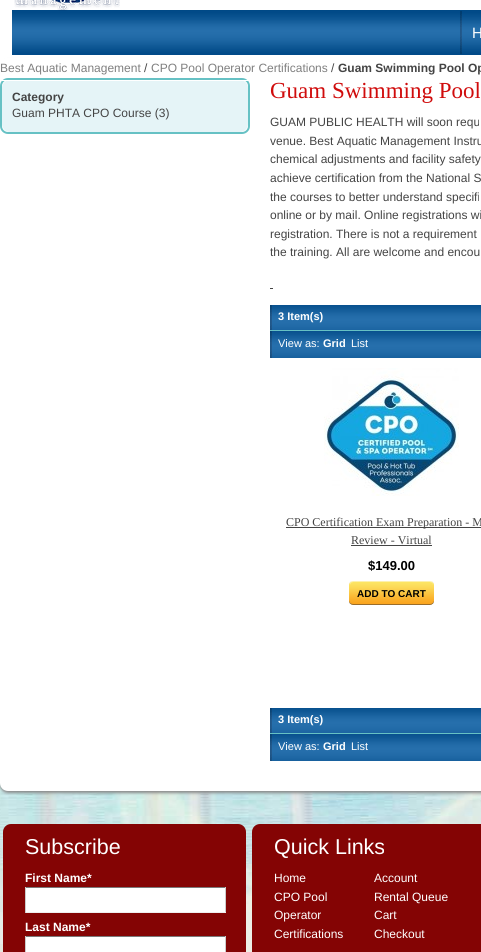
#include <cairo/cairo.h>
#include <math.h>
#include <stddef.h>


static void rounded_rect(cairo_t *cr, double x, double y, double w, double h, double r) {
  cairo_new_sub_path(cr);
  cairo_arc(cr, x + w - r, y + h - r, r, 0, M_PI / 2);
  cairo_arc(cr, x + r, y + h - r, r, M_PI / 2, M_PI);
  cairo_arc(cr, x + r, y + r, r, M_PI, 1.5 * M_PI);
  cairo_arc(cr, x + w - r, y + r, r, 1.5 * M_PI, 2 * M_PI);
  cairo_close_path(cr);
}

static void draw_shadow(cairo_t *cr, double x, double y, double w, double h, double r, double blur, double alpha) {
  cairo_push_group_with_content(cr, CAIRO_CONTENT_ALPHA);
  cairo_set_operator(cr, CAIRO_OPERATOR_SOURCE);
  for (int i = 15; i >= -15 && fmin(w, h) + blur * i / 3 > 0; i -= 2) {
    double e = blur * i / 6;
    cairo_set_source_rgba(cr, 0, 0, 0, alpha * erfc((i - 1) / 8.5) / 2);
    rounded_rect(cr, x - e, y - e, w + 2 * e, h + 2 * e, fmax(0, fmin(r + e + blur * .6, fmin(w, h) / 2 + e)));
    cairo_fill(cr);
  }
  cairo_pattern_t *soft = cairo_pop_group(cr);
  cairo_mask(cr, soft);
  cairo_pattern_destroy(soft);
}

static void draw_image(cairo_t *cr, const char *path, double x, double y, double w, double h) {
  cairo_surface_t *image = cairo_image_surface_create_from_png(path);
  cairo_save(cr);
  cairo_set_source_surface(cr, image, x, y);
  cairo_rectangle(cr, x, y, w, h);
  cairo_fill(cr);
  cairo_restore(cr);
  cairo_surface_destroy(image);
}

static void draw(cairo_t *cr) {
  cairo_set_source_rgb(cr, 1, 1, 1);
  cairo_paint(cr);
  draw_image(cr, "images/1.png", 0, 783, 481, 169);
  draw_image(cr, "images/3.png", 12, 10, 469, 45);
  draw_image(cr, "images/2.png", 14, 0, 106, 11);
  cairo_set_source_rgb(cr, 136 / 255.0, 136 / 255.0, 136 / 255.0);
  draw_shadow(cr, 0, 61, 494, 732, 8, 1.5, 1);
  cairo_set_source_rgb(cr, 1, 1, 1);
  cairo_rectangle(cr, 5, 58, 476, 1);
  cairo_fill(cr);
  draw_image(cr, "images/4.png", 460, 11, 2, 43);
  cairo_new_path(cr);
  cairo_move_to(cr, 0, 59);
  cairo_line_to(cr, 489, 59);
  cairo_line_to(cr, 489, 783);
  cairo_curve_to(cr, 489, 787.5, 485.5, 791, 481, 791);
  cairo_line_to(cr, 8, 791);
  cairo_curve_to(cr, 3.5, 791, 0, 787.5, 0, 783);
  cairo_close_path(cr);
  cairo_fill(cr);
  rounded_rect(cr, 1, 79, 248, 54, 7);
  cairo_set_source_rgb(cr, 102 / 255.0, 193 / 255.0, 196 / 255.0);
  cairo_stroke(cr);
  cairo_set_source_rgb(cr, 229 / 255.0, 244 / 255.0, 247 / 255.0);
  rounded_rect(cr, 2, 80, 246, 52, 8);
  cairo_fill(cr);
  cairo_set_source_rgb(cr, 1, 1, 1);
  cairo_rectangle(cr, 2, 80, 246, 1);
  cairo_fill(cr);
  cairo_set_source_rgb(cr, 68 / 255.0, 68 / 255.0, 68 / 255.0);
  cairo_rectangle(cr, 270, 288, 3, 1);
  cairo_fill(cr);
  draw_image(cr, "images/5.png", 270, 305, 211, 25);
  draw_image(cr, "images/6.png", 270, 331, 211, 27);
  cairo_set_source_rgb(cr, 102 / 255.0, 193 / 255.0, 196 / 255.0);
  cairo_rectangle(cr, 270, 330, 211, 1);
  cairo_fill(cr);
  draw_image(cr, "images/7.png", 324, 368, 135, 128);
  cairo_set_source_rgb(cr, 68 / 255.0, 68 / 255.0, 68 / 255.0);
  cairo_rectangle(cr, 286, 527, 195, 1);
  cairo_fill(cr);
  cairo_rectangle(cr, 351, 545, 81, 1);
  cairo_fill(cr);
  draw_image(cr, "images/8.png", 349, 581, 6, 24);
  draw_image(cr, "images/9.png", 355, 581, 79, 24);
  draw_image(cr, "images/5.png", 270, 708, 211, 25);
  draw_image(cr, "images/6.png", 270, 734, 211, 27);
  cairo_set_source_rgb(cr, 102 / 255.0, 193 / 255.0, 196 / 255.0);
  cairo_rectangle(cr, 270, 733, 211, 1);
  cairo_fill(cr);
  cairo_set_source_rgb(cr, 132 / 255.0, 4 / 255.0, 4 / 255.0);
  rounded_rect(cr, 3, 824, 243, 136, 8);
  cairo_fill(cr);
  cairo_set_source_rgb(cr, 1, 1, 1);
  cairo_rectangle(cr, 26, 888, 199, 24);
  cairo_fill(cr);
  cairo_set_source_rgb(cr, 122 / 255.0, 122 / 255.0, 122 / 255.0);
  cairo_rectangle(cr, 25, 887, 201, 1);
  cairo_fill(cr);
  cairo_set_source_rgb(cr, 204 / 255.0, 204 / 255.0, 204 / 255.0);
  cairo_rectangle(cr, 225, 887, 1, 26);
  cairo_fill(cr);
  cairo_set_source_rgb(cr, 238 / 255.0, 238 / 255.0, 238 / 255.0);
  cairo_rectangle(cr, 25, 912, 201, 1);
  cairo_fill(cr);
  cairo_set_source_rgb(cr, 204 / 255.0, 204 / 255.0, 204 / 255.0);
  cairo_rectangle(cr, 25, 887, 1, 26);
  cairo_fill(cr);
  cairo_set_source_rgb(cr, 1, 1, 1);
  cairo_rectangle(cr, 26, 937, 199, 15);
  cairo_fill(cr);
  cairo_set_source_rgb(cr, 122 / 255.0, 122 / 255.0, 122 / 255.0);
  cairo_rectangle(cr, 25, 936, 201, 1);
  cairo_fill(cr);
  cairo_set_source_rgb(cr, 204 / 255.0, 204 / 255.0, 204 / 255.0);
  cairo_rectangle(cr, 225, 936, 1, 16);
  cairo_fill(cr);
  cairo_rectangle(cr, 25, 936, 1, 16);
  cairo_fill(cr);
  cairo_set_source_rgb(cr, 132 / 255.0, 4 / 255.0, 4 / 255.0);
  rounded_rect(cr, 252, 824, 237, 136, 8);
  cairo_fill(cr);
  cairo_select_font_face(cr, "Liberation Sans", CAIRO_FONT_SLANT_NORMAL, CAIRO_FONT_WEIGHT_NORMAL);
  cairo_set_font_size(cr, 15);
  cairo_set_source_rgb(cr, 1, 1, 1);
  cairo_move_to(cr, 472, 38);
  cairo_show_text(cr, "H");
  cairo_set_font_size(cr, 12);
  cairo_set_source_rgb(cr, 127 / 255.0, 127 / 255.0, 127 / 255.0);
  cairo_move_to(cr, 0, 72);
  cairo_show_text(cr, "Best Aquatic Management");
  cairo_set_source_rgb(cr, 68 / 255.0, 68 / 255.0, 68 / 255.0);
  cairo_move_to(cr, 144, 72);
  cairo_show_text(cr, "/");
  cairo_set_source_rgb(cr, 127 / 255.0, 127 / 255.0, 127 / 255.0);
  cairo_move_to(cr, 151, 72);
  cairo_show_text(cr, "CPO Pool Operator Certifications");
  cairo_set_source_rgb(cr, 68 / 255.0, 68 / 255.0, 68 / 255.0);
  cairo_move_to(cr, 331, 72);
  cairo_show_text(cr, "/");
  cairo_select_font_face(cr, "Liberation Sans", CAIRO_FONT_SLANT_NORMAL, CAIRO_FONT_WEIGHT_BOLD);
  cairo_move_to(cr, 338, 72);
  cairo_show_text(cr, "Guam Swimming Pool Op");
  cairo_move_to(cr, 12, 101);
  cairo_show_text(cr, "Category");
  cairo_select_font_face(cr, "Liberation Sans", CAIRO_FONT_SLANT_NORMAL, CAIRO_FONT_WEIGHT_NORMAL);
  cairo_move_to(cr, 12, 117);
  cairo_show_text(cr, "Guam PHTA CPO Course (3)");
  cairo_select_font_face(cr, "Liberation Serif", CAIRO_FONT_SLANT_NORMAL, CAIRO_FONT_WEIGHT_NORMAL);
  cairo_set_font_size(cr, 23);
  cairo_set_source_rgb(cr, 208 / 255.0, 12 / 255.0, 12 / 255.0);
  cairo_move_to(cr, 270, 98);
  cairo_show_text(cr, "Guam Swimming Pool");
  cairo_select_font_face(cr, "Liberation Sans", CAIRO_FONT_SLANT_NORMAL, CAIRO_FONT_WEIGHT_NORMAL);
  cairo_set_font_size(cr, 12);
  cairo_set_source_rgb(cr, 68 / 255.0, 68 / 255.0, 68 / 255.0);
  cairo_move_to(cr, 270, 126);
  cairo_show_text(cr, "GUAM PUBLIC HEALTH will soon requ");
  cairo_move_to(cr, 270, 145);
  cairo_show_text(cr, "venue. Best Aquatic Management Instru");
  cairo_move_to(cr, 270, 163);
  cairo_show_text(cr, "chemical adjustments and facility safety");
  cairo_move_to(cr, 270, 182);
  cairo_show_text(cr, "achieve certification from the National S");
  cairo_move_to(cr, 270, 201);
  cairo_show_text(cr, "the courses to better understand specifi");
  cairo_move_to(cr, 270, 219);
  cairo_show_text(cr, "online or by mail. Online registrations wi");
  cairo_move_to(cr, 270, 238);
  cairo_show_text(cr, "registration. There is not a requirement");
  cairo_move_to(cr, 270, 256);
  cairo_show_text(cr, "the training. All are welcome and encou");
  cairo_select_font_face(cr, "Liberation Sans", CAIRO_FONT_SLANT_NORMAL, CAIRO_FONT_WEIGHT_BOLD);
  cairo_set_font_size(cr, 11);
  cairo_set_source_rgb(cr, 1, 1, 1);
  cairo_move_to(cr, 278, 320);
  cairo_show_text(cr, "3 Item(s)");
  cairo_select_font_face(cr, "Liberation Sans", CAIRO_FONT_SLANT_NORMAL, CAIRO_FONT_WEIGHT_NORMAL);
  cairo_move_to(cr, 278, 347);
  cairo_show_text(cr, "View as:");
  cairo_select_font_face(cr, "Liberation Sans", CAIRO_FONT_SLANT_NORMAL, CAIRO_FONT_WEIGHT_BOLD);
  cairo_move_to(cr, 323, 347);
  cairo_show_text(cr, "Grid");
  cairo_select_font_face(cr, "Liberation Sans", CAIRO_FONT_SLANT_NORMAL, CAIRO_FONT_WEIGHT_NORMAL);
  cairo_move_to(cr, 351, 347);
  cairo_show_text(cr, "List");
  cairo_select_font_face(cr, "Liberation Serif", CAIRO_FONT_SLANT_NORMAL, CAIRO_FONT_WEIGHT_NORMAL);
  cairo_set_font_size(cr, 12);
  cairo_set_source_rgb(cr, 68 / 255.0, 68 / 255.0, 68 / 255.0);
  cairo_move_to(cr, 286, 526);
  cairo_show_text(cr, "CPO Certification Exam Preparation - M");
  cairo_move_to(cr, 351, 544);
  cairo_show_text(cr, "Review - Virtual");
  cairo_select_font_face(cr, "Liberation Sans", CAIRO_FONT_SLANT_NORMAL, CAIRO_FONT_WEIGHT_BOLD);
  cairo_set_font_size(cr, 13);
  cairo_set_source_rgb(cr, 0, 0, 0);
  cairo_move_to(cr, 368, 570);
  cairo_show_text(cr, "$149.00");
  cairo_set_font_size(cr, 10);
  cairo_move_to(cr, 357, 597);
  cairo_show_text(cr, "ADD TO CART");
  cairo_set_font_size(cr, 11);
  cairo_set_source_rgb(cr, 1, 1, 1);
  cairo_move_to(cr, 278, 723);
  cairo_show_text(cr, "3 Item(s)");
  cairo_select_font_face(cr, "Liberation Sans", CAIRO_FONT_SLANT_NORMAL, CAIRO_FONT_WEIGHT_NORMAL);
  cairo_move_to(cr, 278, 750);
  cairo_show_text(cr, "View as:");
  cairo_select_font_face(cr, "Liberation Sans", CAIRO_FONT_SLANT_NORMAL, CAIRO_FONT_WEIGHT_BOLD);
  cairo_move_to(cr, 323, 750);
  cairo_show_text(cr, "Grid");
  cairo_select_font_face(cr, "Liberation Sans", CAIRO_FONT_SLANT_NORMAL, CAIRO_FONT_WEIGHT_NORMAL);
  cairo_move_to(cr, 351, 750);
  cairo_show_text(cr, "List");
  cairo_set_font_size(cr, 21.5);
  cairo_move_to(cr, 25, 854);
  cairo_show_text(cr, "Subscribe");
  cairo_select_font_face(cr, "Liberation Sans", CAIRO_FONT_SLANT_NORMAL, CAIRO_FONT_WEIGHT_BOLD);
  cairo_set_font_size(cr, 12);
  cairo_move_to(cr, 25, 882);
  cairo_show_text(cr, "First Name*");
  cairo_move_to(cr, 25, 931);
  cairo_show_text(cr, "Last Name*");
  cairo_select_font_face(cr, "Liberation Sans", CAIRO_FONT_SLANT_NORMAL, CAIRO_FONT_WEIGHT_NORMAL);
  cairo_set_font_size(cr, 21.5);
  cairo_move_to(cr, 274, 854);
  cairo_show_text(cr, "Quick Links");
  cairo_set_font_size(cr, 12);
  cairo_move_to(cr, 274, 882);
  cairo_show_text(cr, "Home");
  cairo_move_to(cr, 274, 901);
  cairo_show_text(cr, "CPO Pool");
  cairo_move_to(cr, 274, 919);
  cairo_show_text(cr, "Operator");
  cairo_move_to(cr, 274, 938);
  cairo_show_text(cr, "Certifications");
  cairo_move_to(cr, 374, 882);
  cairo_show_text(cr, "Account");
  cairo_move_to(cr, 374, 901);
  cairo_show_text(cr, "Rental Queue");
  cairo_move_to(cr, 374, 919);
  cairo_show_text(cr, "Cart");
  cairo_move_to(cr, 374, 938);
  cairo_show_text(cr, "Checkout");
}

int main(void) {
  cairo_surface_t *surface = cairo_image_surface_create(CAIRO_FORMAT_RGB24, 481, 952);
  cairo_t *cr = cairo_create(surface);
  cairo_font_options_t *options = cairo_font_options_create();
  cairo_font_options_set_hint_metrics(options, CAIRO_HINT_METRICS_OFF);
  cairo_font_options_set_hint_style(options, CAIRO_HINT_STYLE_NONE);
  cairo_set_font_options(cr, options);
  cairo_set_miter_limit(cr, 4);
  draw(cr);
  cairo_surface_write_to_png(surface, "out.png");
  cairo_font_options_destroy(options);
  cairo_destroy(cr);
  cairo_surface_destroy(surface);
  return 0;
}
